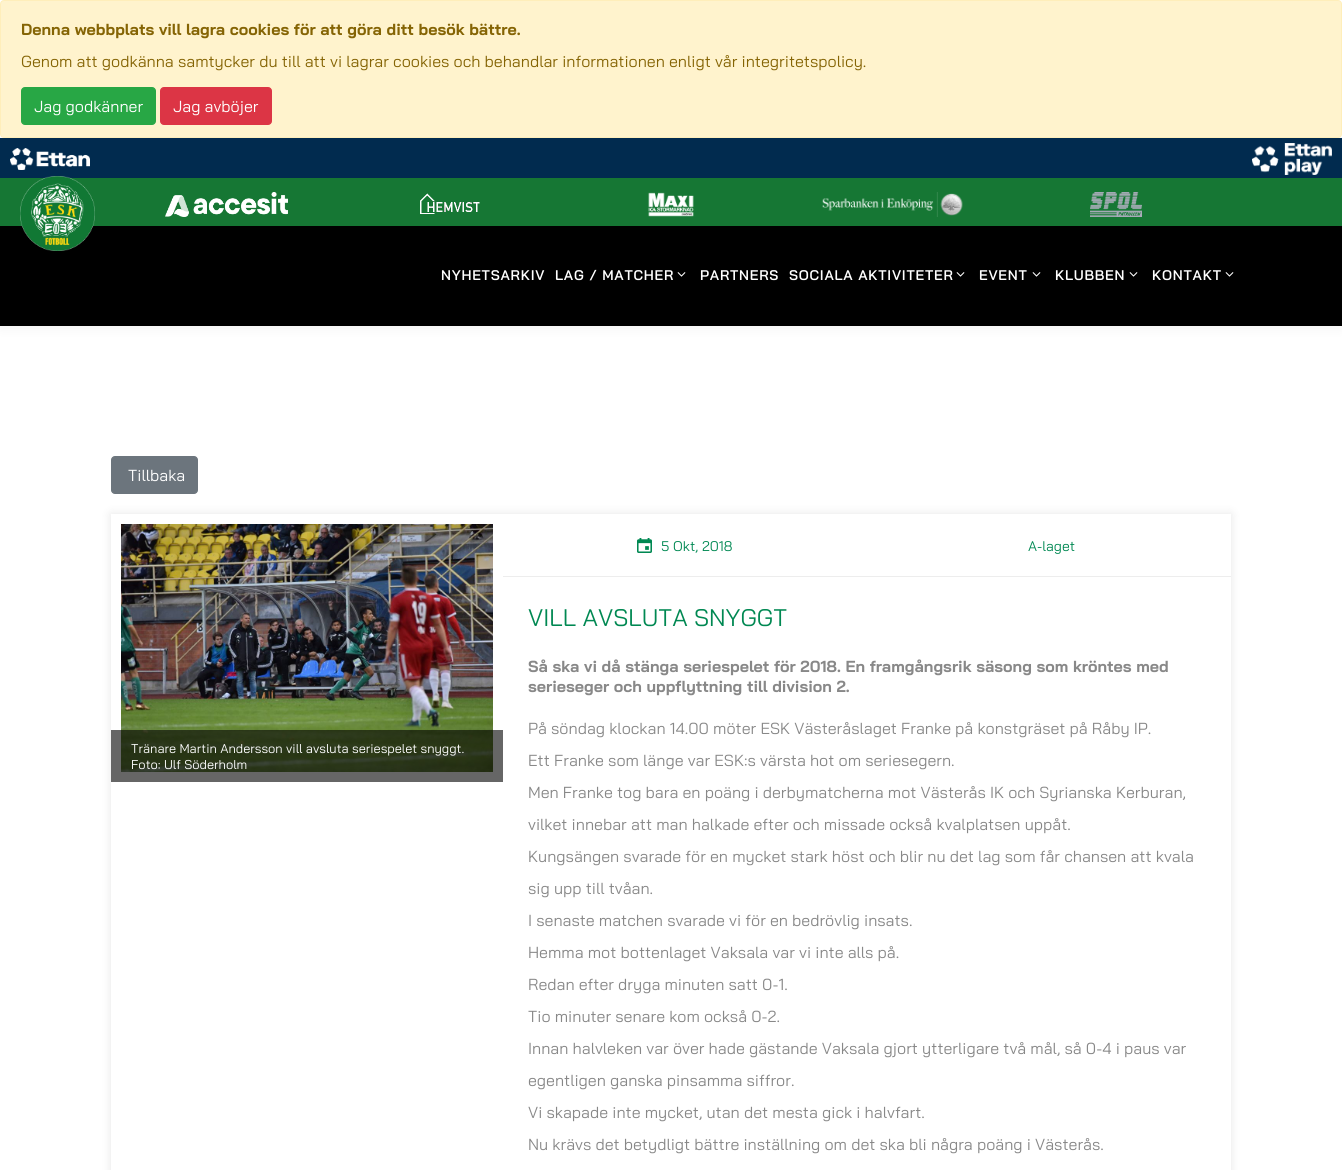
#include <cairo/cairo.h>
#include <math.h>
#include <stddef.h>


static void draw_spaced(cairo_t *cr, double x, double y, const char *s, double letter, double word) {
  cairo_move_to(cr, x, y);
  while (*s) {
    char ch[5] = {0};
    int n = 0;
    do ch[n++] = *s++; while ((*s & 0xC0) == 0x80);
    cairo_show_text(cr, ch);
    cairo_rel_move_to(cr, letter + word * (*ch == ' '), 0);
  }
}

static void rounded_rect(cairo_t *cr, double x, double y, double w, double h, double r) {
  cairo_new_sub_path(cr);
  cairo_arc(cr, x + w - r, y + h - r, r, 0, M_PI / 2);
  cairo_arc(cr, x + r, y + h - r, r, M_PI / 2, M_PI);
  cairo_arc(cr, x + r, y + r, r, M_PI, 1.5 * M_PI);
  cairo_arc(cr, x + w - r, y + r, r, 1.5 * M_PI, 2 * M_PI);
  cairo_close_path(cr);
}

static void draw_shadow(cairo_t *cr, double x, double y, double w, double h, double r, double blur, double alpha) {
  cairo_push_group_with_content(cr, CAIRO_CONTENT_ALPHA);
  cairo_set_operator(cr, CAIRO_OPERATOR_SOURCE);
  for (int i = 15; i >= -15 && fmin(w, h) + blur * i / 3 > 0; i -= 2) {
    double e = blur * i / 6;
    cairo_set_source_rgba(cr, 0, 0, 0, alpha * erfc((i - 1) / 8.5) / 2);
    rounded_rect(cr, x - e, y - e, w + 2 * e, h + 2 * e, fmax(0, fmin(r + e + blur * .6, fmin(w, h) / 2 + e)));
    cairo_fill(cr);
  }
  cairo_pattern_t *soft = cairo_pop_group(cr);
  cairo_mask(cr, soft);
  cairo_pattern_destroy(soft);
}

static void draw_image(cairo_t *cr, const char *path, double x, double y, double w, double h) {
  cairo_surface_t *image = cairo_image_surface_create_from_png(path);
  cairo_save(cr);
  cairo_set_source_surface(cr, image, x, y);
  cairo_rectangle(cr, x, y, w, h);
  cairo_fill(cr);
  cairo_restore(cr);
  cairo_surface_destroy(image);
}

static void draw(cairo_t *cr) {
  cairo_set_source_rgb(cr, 1, 1, 1);
  cairo_paint(cr);
  cairo_set_source_rgb(cr, 136 / 255.0, 136 / 255.0, 136 / 255.0);
  draw_shadow(cr, 0, 140, 1342, 188, 0, 6, 0.1);
  cairo_set_source_rgb(cr, 1, 1, 1);
  cairo_rectangle(cr, 2, 135, 1338, 3);
  cairo_fill(cr);
  cairo_set_source_rgb(cr, 1, 243 / 255.0, 205 / 255.0);
  rounded_rect(cr, 0.5, 0.5, 1341, 137, 3.5);
  cairo_fill_preserve(cr);
  cairo_set_source_rgb(cr, 1, 238 / 255.0, 186 / 255.0);
  cairo_set_line_width(cr, 1);
  cairo_stroke(cr);
  cairo_set_source_rgb(cr, 40 / 255.0, 167 / 255.0, 69 / 255.0);
  rounded_rect(cr, 21.5, 87.5, 134, 37, 3.5);
  cairo_fill_preserve(cr);
  cairo_stroke(cr);
  cairo_set_source_rgb(cr, 220 / 255.0, 53 / 255.0, 69 / 255.0);
  rounded_rect(cr, 160.5, 87.5, 111, 37, 3.5);
  cairo_fill_preserve(cr);
  cairo_stroke(cr);
  cairo_set_source_rgb(cr, 0, 0, 0);
  cairo_rectangle(cr, 0, 226, 1342, 100);
  cairo_fill(cr);
  draw_image(cr, "images/1.png", 0, 138, 1342, 40);
  cairo_set_source_rgb(cr, 22 / 255.0, 119 / 255.0, 52 / 255.0);
  cairo_rectangle(cr, 0, 178, 1342, 48);
  cairo_fill(cr);
  draw_image(cr, "images/2.png", 165, 192, 123, 25);
  draw_image(cr, "images/3.png", 420, 193, 60, 21);
  draw_image(cr, "images/4.png", 648, 192, 46, 25);
  draw_image(cr, "images/5.png", 822, 192, 141, 25);
  draw_image(cr, "images/6.png", 1090, 192, 52, 25);
  draw_image(cr, "images/7.png", 20, 176, 75, 75);
  draw_image(cr, "images/8.png", 677, 272, 9, 5);
  draw_image(cr, "images/8.png", 956, 272, 9, 5);
  draw_image(cr, "images/8.png", 1032, 272, 9, 5);
  draw_image(cr, "images/8.png", 1129, 272, 9, 5);
  draw_image(cr, "images/8.png", 1225, 272, 9, 5);
  cairo_set_source_rgb(cr, 108 / 255.0, 117 / 255.0, 125 / 255.0);
  rounded_rect(cr, 111.5, 456.5, 86, 37, 3.5);
  cairo_fill_preserve(cr);
  cairo_stroke(cr);
  cairo_save(cr);
  cairo_set_fill_rule(cr, CAIRO_FILL_RULE_EVEN_ODD);
  cairo_new_path(cr);
  cairo_move_to(cr, 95, 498);
  cairo_line_to(cr, 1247, 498);
  cairo_line_to(cr, 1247, 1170);
  cairo_line_to(cr, 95, 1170);
  cairo_close_path(cr);
  cairo_move_to(cr, 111, 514);
  cairo_line_to(cr, 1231, 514);
  cairo_line_to(cr, 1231, 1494);
  cairo_line_to(cr, 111, 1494);
  cairo_close_path(cr);
  cairo_clip(cr);
  cairo_set_source_rgb(cr, 0, 0, 0);
  draw_shadow(cr, 111, 514, 1120, 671, 0, 5, 0.1);
  cairo_restore(cr);
  draw_image(cr, "images/9.png", 121, 524, 372, 248);
  cairo_set_source_rgba(cr, 0, 0, 0, 0.6);
  cairo_rectangle(cr, 111, 730, 392, 52);
  cairo_fill(cr);
  cairo_set_source_rgb(cr, 237 / 255.0, 237 / 255.0, 237 / 255.0);
  cairo_rectangle(cr, 503, 576, 728, 1);
  cairo_fill(cr);
  draw_image(cr, "images/10.png", 637, 538, 15, 15);
  cairo_select_font_face(cr, "Bai Jamjuree", CAIRO_FONT_SLANT_NORMAL, CAIRO_FONT_WEIGHT_BOLD);
  cairo_set_font_size(cr, 16);
  cairo_set_source_rgb(cr, 133 / 255.0, 100 / 255.0, 4 / 255.0);
  cairo_move_to(cr, 21, 35);
  cairo_show_text(cr, "Denna webbplats vill lagra cookies för att göra ditt besök bättre.");
  cairo_select_font_face(cr, "Bai Jamjuree", CAIRO_FONT_SLANT_NORMAL, CAIRO_FONT_WEIGHT_NORMAL);
  cairo_move_to(cr, 21, 67);
  cairo_show_text(cr, "Genom att godkänna samtycker du till att vi lagrar cookies och behandlar informationen enligt vår integritetspolicy.");
  cairo_set_source_rgb(cr, 1, 1, 1);
  cairo_move_to(cr, 34, 112);
  cairo_show_text(cr, "Jag godkänner");
  cairo_move_to(cr, 173, 112);
  cairo_show_text(cr, "Jag avböjer");
  cairo_select_font_face(cr, "Bai Jamjuree SemiBold", CAIRO_FONT_SLANT_NORMAL, CAIRO_FONT_WEIGHT_NORMAL);
  cairo_set_font_size(cr, 14);
  draw_spaced(cr, 441, 280, "NYHETSARKIV", 0.75, 0);
  draw_spaced(cr, 555, 280, "LAG / MATCHER", 0.75, 0);
  draw_spaced(cr, 700, 280, "PARTNERS", 0.75, 0);
  draw_spaced(cr, 789, 280, "SOCIALA AKTIVITETER", 0.75, 0);
  draw_spaced(cr, 979, 280, "EVENT", 0.75, 0);
  draw_spaced(cr, 1055, 280, "KLUBBEN", 0.75, 0);
  draw_spaced(cr, 1152, 280, "KONTAKT", 0.75, 0);
  cairo_select_font_face(cr, "Bai Jamjuree", CAIRO_FONT_SLANT_NORMAL, CAIRO_FONT_WEIGHT_NORMAL);
  cairo_set_font_size(cr, 16);
  cairo_move_to(cr, 128, 481);
  cairo_show_text(cr, "Tillbaka");
  cairo_set_font_size(cr, 12.8);
  cairo_move_to(cr, 131, 753);
  cairo_show_text(cr, "Tränare Martin Andersson vill avsluta seriespelet snyggt.");
  cairo_move_to(cr, 131, 769);
  cairo_show_text(cr, "Foto: Ulf Söderholm");
  cairo_set_font_size(cr, 14);
  cairo_set_source_rgb(cr, 0, 136 / 255.0, 82 / 255.0);
  cairo_move_to(cr, 661, 551);
  cairo_show_text(cr, "5 Okt, 2018");
  cairo_move_to(cr, 1028, 551);
  cairo_show_text(cr, "A-laget");
  cairo_set_font_size(cr, 24);
  cairo_move_to(cr, 528, 626);
  cairo_show_text(cr, "VILL AVSLUTA SNYGGT");
  cairo_select_font_face(cr, "Bai Jamjuree", CAIRO_FONT_SLANT_NORMAL, CAIRO_FONT_WEIGHT_BOLD);
  cairo_set_font_size(cr, 16);
  cairo_set_source_rgb(cr, 136 / 255.0, 136 / 255.0, 136 / 255.0);
  cairo_move_to(cr, 528, 672);
  cairo_show_text(cr, "Så ska vi då stänga seriespelet för 2018. En framgångsrik säsong som kröntes med");
  cairo_move_to(cr, 528, 692);
  cairo_show_text(cr, "serieseger och uppflyttning till division 2.");
  cairo_select_font_face(cr, "Bai Jamjuree", CAIRO_FONT_SLANT_NORMAL, CAIRO_FONT_WEIGHT_NORMAL);
  cairo_move_to(cr, 528, 734);
  cairo_show_text(cr, "På söndag klockan 14.00 möter ESK Västeråslaget Franke på konstgräset på Råby IP.");
  cairo_move_to(cr, 528, 766);
  cairo_show_text(cr, "Ett Franke som länge var ESK:s värsta hot om seriesegern.");
  cairo_move_to(cr, 528, 798);
  cairo_show_text(cr, "Men Franke tog bara en poäng i derbymatcherna mot Västerås IK och Syrianska Kerburan,");
  cairo_move_to(cr, 528, 830);
  cairo_show_text(cr, "vilket innebar att man halkade efter och missade också kvalplatsen uppåt.");
  cairo_move_to(cr, 528, 862);
  cairo_show_text(cr, "Kungsängen svarade för en mycket stark höst och blir nu det lag som får chansen att kvala");
  cairo_move_to(cr, 528, 894);
  cairo_show_text(cr, "sig upp till tvåan.");
  cairo_move_to(cr, 528, 926);
  cairo_show_text(cr, "I senaste matchen svarade vi för en bedrövlig insats.");
  cairo_move_to(cr, 528, 958);
  cairo_show_text(cr, "Hemma mot bottenlaget Vaksala var vi inte alls på.");
  cairo_move_to(cr, 528, 990);
  cairo_show_text(cr, "Redan efter dryga minuten satt 0-1.");
  cairo_move_to(cr, 528, 1022);
  cairo_show_text(cr, "Tio minuter senare kom också 0-2.");
  cairo_move_to(cr, 528, 1054);
  cairo_show_text(cr, "Innan halvleken var över hade gästande Vaksala gjort ytterligare två mål, så 0-4 i paus var");
  cairo_move_to(cr, 528, 1086);
  cairo_show_text(cr, "egentligen ganska pinsamma siffror.");
  cairo_move_to(cr, 528, 1118);
  cairo_show_text(cr, "Vi skapade inte mycket, utan det mesta gick i halvfart.");
  cairo_move_to(cr, 528, 1150);
  cairo_show_text(cr, "Nu krävs det betydligt bättre inställning om det ska bli några poäng i Västerås.");
}

int main(void) {
  cairo_surface_t *surface = cairo_image_surface_create(CAIRO_FORMAT_RGB24, 1342, 1170);
  cairo_t *cr = cairo_create(surface);
  cairo_font_options_t *options = cairo_font_options_create();
  cairo_font_options_set_hint_metrics(options, CAIRO_HINT_METRICS_OFF);
  cairo_font_options_set_hint_style(options, CAIRO_HINT_STYLE_NONE);
  cairo_set_font_options(cr, options);
  cairo_set_miter_limit(cr, 4);
  draw(cr);
  cairo_surface_write_to_png(surface, "out.png");
  cairo_font_options_destroy(options);
  cairo_destroy(cr);
  cairo_surface_destroy(surface);
  return 0;
}
